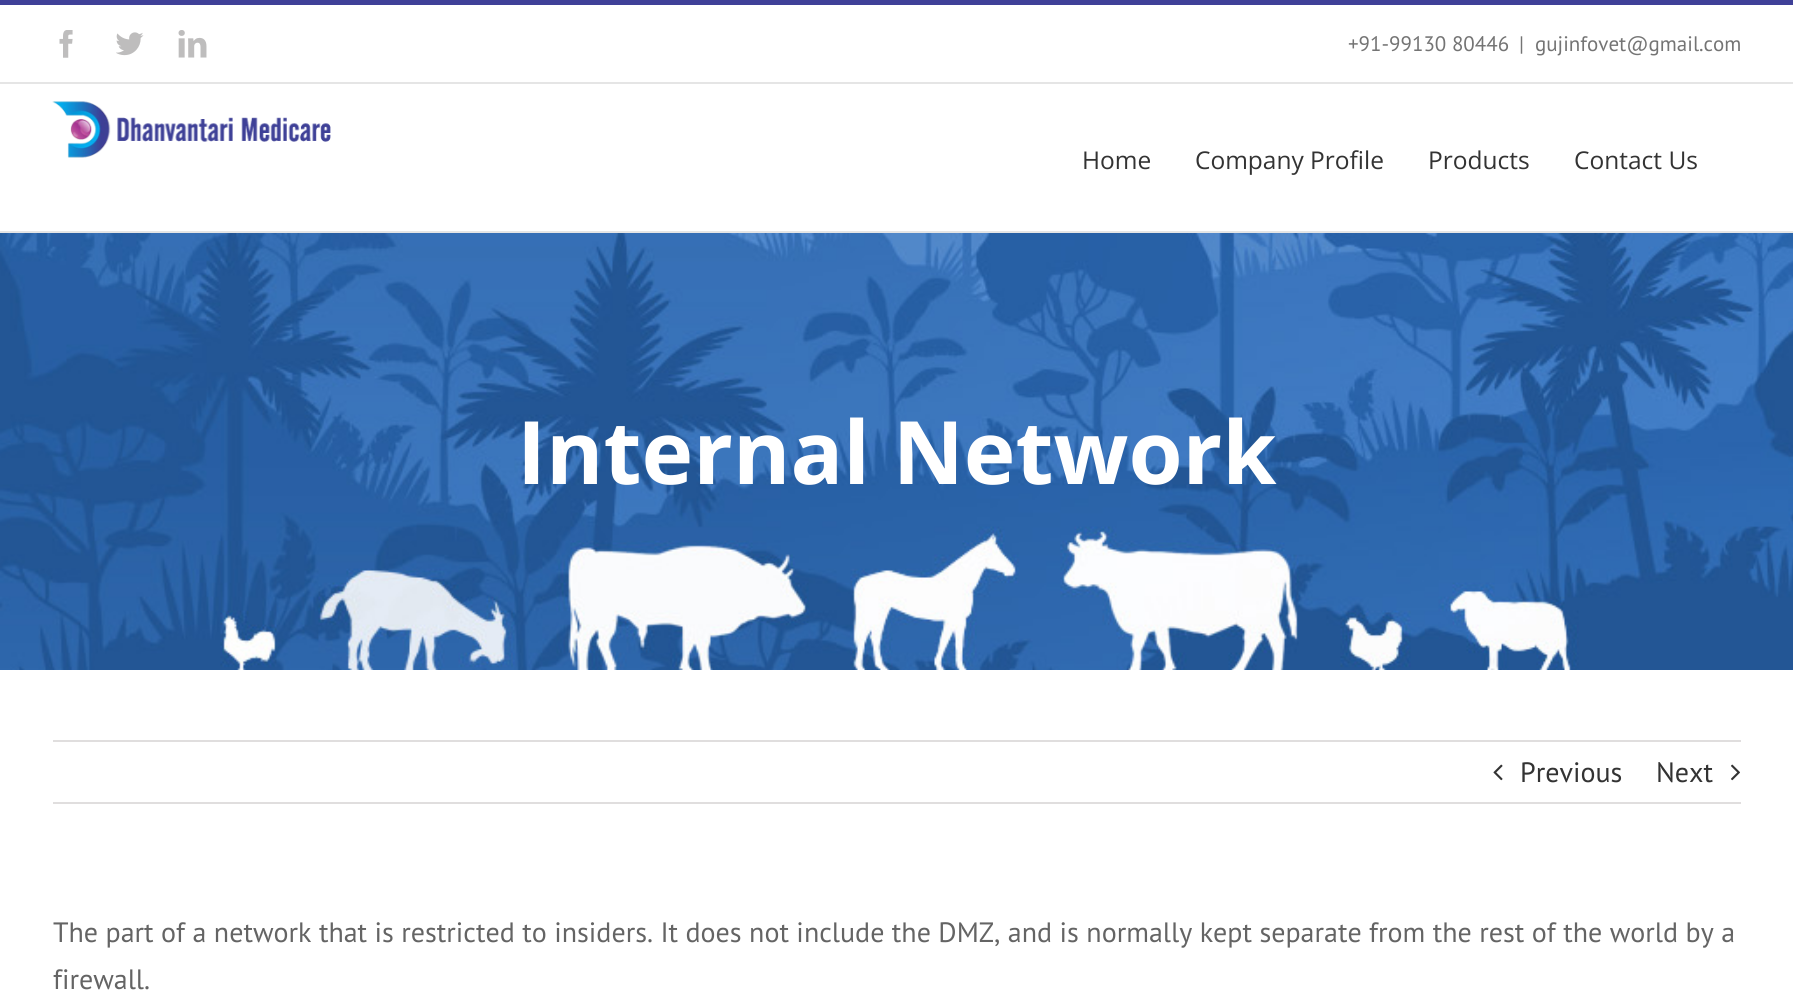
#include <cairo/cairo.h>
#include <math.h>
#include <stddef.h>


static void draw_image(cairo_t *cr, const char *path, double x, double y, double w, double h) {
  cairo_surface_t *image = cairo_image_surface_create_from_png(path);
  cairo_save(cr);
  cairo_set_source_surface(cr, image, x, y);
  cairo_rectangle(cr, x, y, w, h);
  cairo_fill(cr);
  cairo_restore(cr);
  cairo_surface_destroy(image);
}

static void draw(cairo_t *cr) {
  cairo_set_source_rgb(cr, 1, 1, 1);
  cairo_paint(cr);
  cairo_set_source_rgb(cr, 63 / 255.0, 64 / 255.0, 152 / 255.0);
  cairo_rectangle(cr, 0, 0, 1793, 5);
  cairo_fill(cr);
  cairo_set_source_rgb(cr, 229 / 255.0, 229 / 255.0, 229 / 255.0);
  cairo_rectangle(cr, 0, 82, 1793, 2);
  cairo_fill(cr);
  draw_image(cr, "images/1.png", 59, 30, 14, 28);
  draw_image(cr, "images/2.png", 116, 32, 28, 24);
  draw_image(cr, "images/3.png", 178, 30, 29, 28);
  cairo_rectangle(cr, 0, 231, 1793, 2);
  cairo_fill(cr);
  draw_image(cr, "images/4.png", 52, 101, 279, 57);
  draw_image(cr, "images/5.png", 0, 233, 1793, 437);
  cairo_set_source_rgb(cr, 224 / 255.0, 222 / 255.0, 222 / 255.0);
  cairo_rectangle(cr, 53, 740, 1688, 2);
  cairo_fill(cr);
  cairo_rectangle(cr, 53, 802, 1688, 2);
  cairo_fill(cr);
  draw_image(cr, "images/6.png", 1493, 764, 10, 17);
  draw_image(cr, "images/7.png", 1731, 764, 9, 17);
  cairo_select_font_face(cr, "PT Sans", CAIRO_FONT_SLANT_NORMAL, CAIRO_FONT_WEIGHT_NORMAL);
  cairo_set_font_size(cr, 21);
  cairo_set_source_rgb(cr, 116 / 255.0, 116 / 255.0, 116 / 255.0);
  cairo_move_to(cr, 1348, 51);
  cairo_show_text(cr, "+91-99130 80446");
  cairo_move_to(cr, 1519, 51);
  cairo_show_text(cr, "|");
  cairo_move_to(cr, 1535, 51);
  cairo_show_text(cr, "gujinfovet@gmail.com");
  cairo_select_font_face(cr, "Open Sans", CAIRO_FONT_SLANT_NORMAL, CAIRO_FONT_WEIGHT_NORMAL);
  cairo_set_font_size(cr, 24.5);
  cairo_set_source_rgb(cr, 51 / 255.0, 51 / 255.0, 51 / 255.0);
  cairo_move_to(cr, 1082, 169);
  cairo_show_text(cr, "Home");
  cairo_move_to(cr, 1195, 169);
  cairo_show_text(cr, "Company Profile");
  cairo_move_to(cr, 1428, 169);
  cairo_show_text(cr, "Products");
  cairo_move_to(cr, 1574, 169);
  cairo_show_text(cr, "Contact Us");
  cairo_select_font_face(cr, "Open Sans", CAIRO_FONT_SLANT_NORMAL, CAIRO_FONT_WEIGHT_BOLD);
  cairo_set_font_size(cr, 87.5);
  cairo_set_source_rgb(cr, 1, 1, 1);
  cairo_move_to(cr, 517, 484);
  cairo_show_text(cr, "Internal Network");
  cairo_select_font_face(cr, "PT Sans", CAIRO_FONT_SLANT_NORMAL, CAIRO_FONT_WEIGHT_NORMAL);
  cairo_set_font_size(cr, 28);
  cairo_set_source_rgb(cr, 51 / 255.0, 51 / 255.0, 51 / 255.0);
  cairo_move_to(cr, 1520, 782);
  cairo_show_text(cr, "Previous");
  cairo_move_to(cr, 1656, 782);
  cairo_show_text(cr, "Next");
  cairo_set_source_rgb(cr, 100 / 255.0, 100 / 255.0, 100 / 255.0);
  cairo_move_to(cr, 53, 942);
  cairo_show_text(cr, "The part of a network that is restricted to insiders. It does not include the DMZ, and is normally kept separate from the rest of the world by a");
  cairo_move_to(cr, 53, 989);
  cairo_show_text(cr, "firewall.");
}

int main(void) {
  cairo_surface_t *surface = cairo_image_surface_create(CAIRO_FORMAT_RGB24, 1793, 995);
  cairo_t *cr = cairo_create(surface);
  cairo_font_options_t *options = cairo_font_options_create();
  cairo_font_options_set_hint_metrics(options, CAIRO_HINT_METRICS_OFF);
  cairo_font_options_set_hint_style(options, CAIRO_HINT_STYLE_NONE);
  cairo_set_font_options(cr, options);
  cairo_set_miter_limit(cr, 4);
  draw(cr);
  cairo_surface_write_to_png(surface, "out.png");
  cairo_font_options_destroy(options);
  cairo_destroy(cr);
  cairo_surface_destroy(surface);
  return 0;
}
